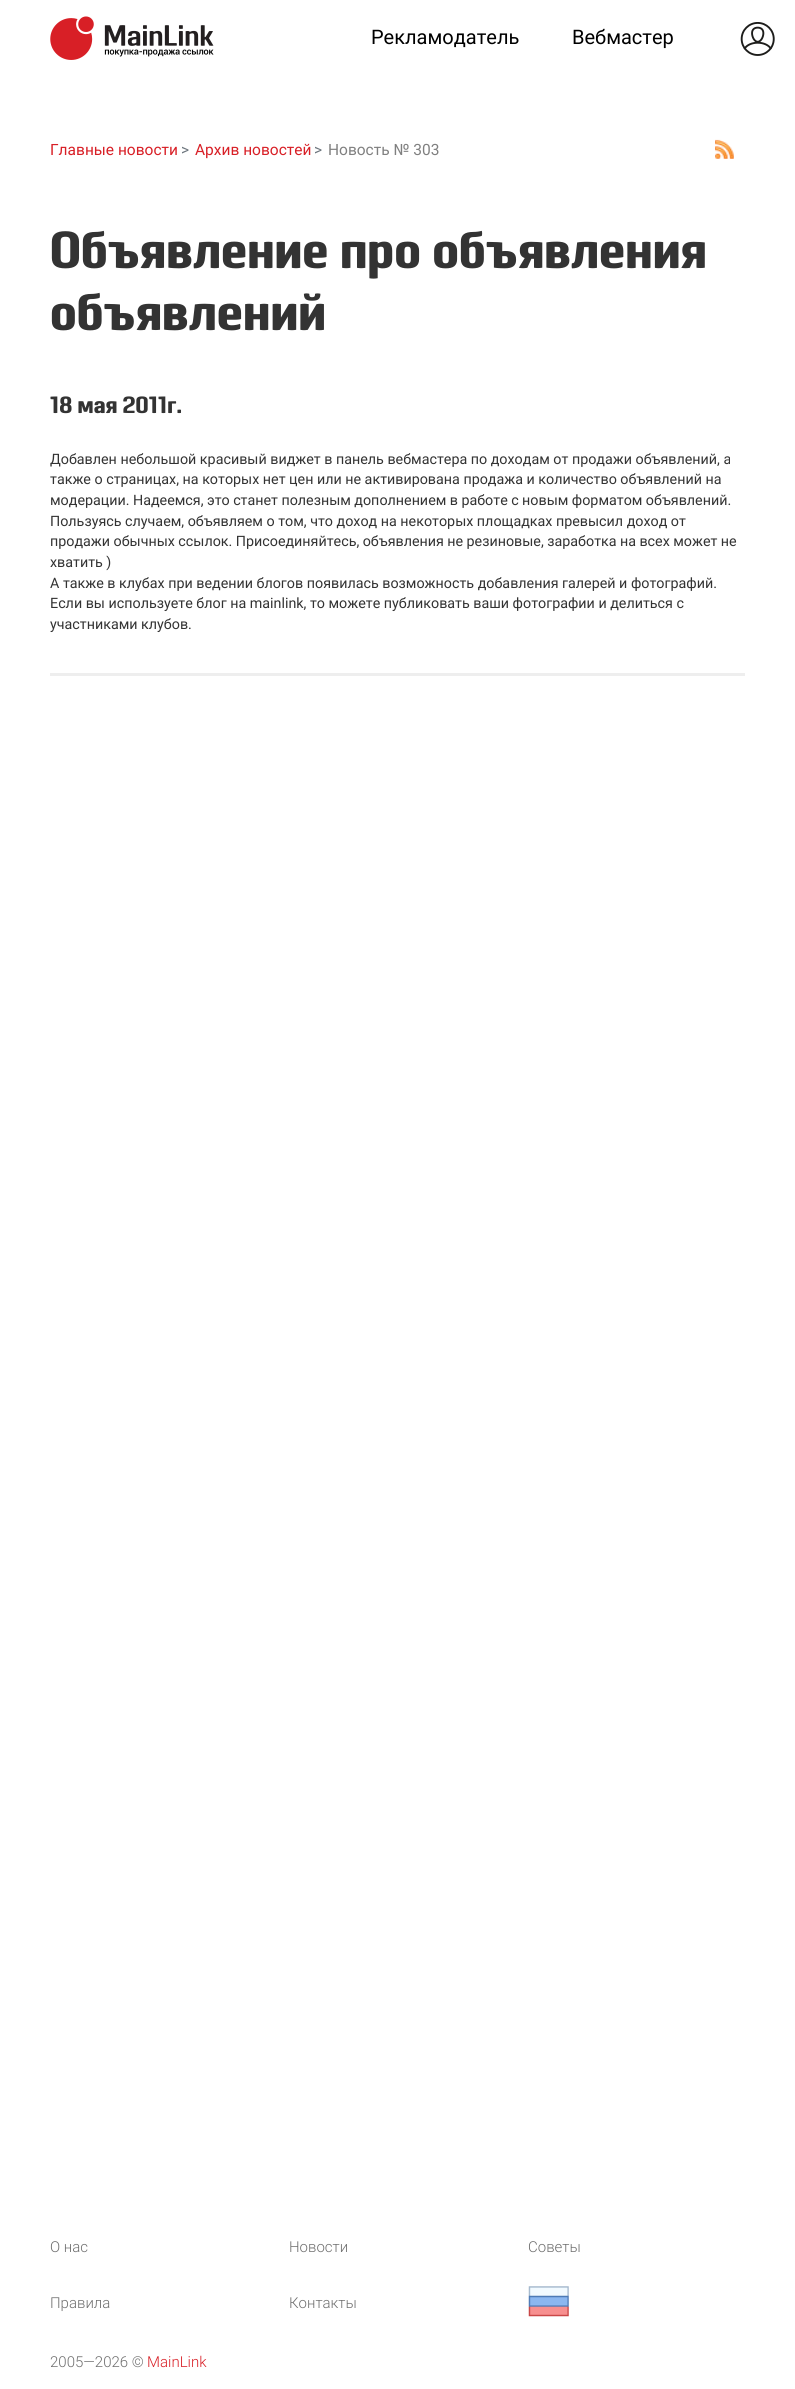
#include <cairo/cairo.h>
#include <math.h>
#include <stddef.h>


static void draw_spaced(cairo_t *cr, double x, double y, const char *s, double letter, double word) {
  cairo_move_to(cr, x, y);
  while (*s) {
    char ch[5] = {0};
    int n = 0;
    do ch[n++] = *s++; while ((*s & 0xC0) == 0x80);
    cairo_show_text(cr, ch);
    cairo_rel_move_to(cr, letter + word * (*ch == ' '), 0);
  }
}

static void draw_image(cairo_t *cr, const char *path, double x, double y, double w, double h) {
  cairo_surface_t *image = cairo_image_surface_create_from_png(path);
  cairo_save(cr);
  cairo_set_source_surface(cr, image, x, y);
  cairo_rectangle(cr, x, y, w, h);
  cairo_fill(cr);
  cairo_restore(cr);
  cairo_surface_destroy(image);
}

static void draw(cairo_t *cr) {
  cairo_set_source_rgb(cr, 1, 1, 1);
  cairo_paint(cr);
  draw_image(cr, "images/1.png", 50, 16, 164, 44);
  draw_image(cr, "images/2.png", 740, 22, 35, 34);
  draw_image(cr, "images/3.png", 715, 139, 19, 20);
  cairo_set_source_rgb(cr, 238 / 255.0, 238 / 255.0, 238 / 255.0);
  cairo_rectangle(cr, 50, 673, 695, 3);
  cairo_fill(cr);
  draw_image(cr, "images/4.png", 528, 2286, 41, 31);
  cairo_select_font_face(cr, "Roboto", CAIRO_FONT_SLANT_NORMAL, CAIRO_FONT_WEIGHT_NORMAL);
  cairo_set_font_size(cr, 20);
  cairo_set_source_rgb(cr, 0, 0, 0);
  cairo_move_to(cr, 371, 44);
  cairo_show_text(cr, "Рекламодатель");
  cairo_move_to(cr, 572, 44);
  cairo_show_text(cr, "Вебмастер");
  cairo_set_font_size(cr, 15.5);
  cairo_set_source_rgb(cr, 216 / 255.0, 31 / 255.0, 38 / 255.0);
  cairo_move_to(cr, 50, 155);
  cairo_show_text(cr, "Главные новости");
  cairo_set_source_rgb(cr, 108 / 255.0, 117 / 255.0, 125 / 255.0);
  cairo_move_to(cr, 181, 155);
  cairo_show_text(cr, ">");
  cairo_set_source_rgb(cr, 216 / 255.0, 31 / 255.0, 38 / 255.0);
  cairo_move_to(cr, 195, 155);
  cairo_show_text(cr, "Архив новостей");
  cairo_set_source_rgb(cr, 108 / 255.0, 117 / 255.0, 125 / 255.0);
  cairo_move_to(cr, 314, 155);
  cairo_show_text(cr, ">");
  cairo_set_source_rgb(cr, 128 / 255.0, 128 / 255.0, 128 / 255.0);
  cairo_move_to(cr, 328, 155);
  cairo_show_text(cr, "Новость № 303");
  cairo_select_font_face(cr, "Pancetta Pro", CAIRO_FONT_SLANT_NORMAL, CAIRO_FONT_WEIGHT_BOLD);
  cairo_set_font_size(cr, 52.1);
  cairo_set_source_rgb(cr, 51 / 255.0, 51 / 255.0, 51 / 255.0);
  cairo_move_to(cr, 50, 268);
  cairo_show_text(cr, "Объявление про объявления");
  cairo_move_to(cr, 50, 330);
  cairo_show_text(cr, "объявлений");
  cairo_set_font_size(cr, 23.5);
  cairo_move_to(cr, 50, 413);
  cairo_show_text(cr, "18 мая 2011г.");
  cairo_select_font_face(cr, "Roboto", CAIRO_FONT_SLANT_NORMAL, CAIRO_FONT_WEIGHT_NORMAL);
  cairo_set_font_size(cr, 14.3);
  cairo_move_to(cr, 50, 464);
  cairo_show_text(cr, "Добавлен небольшой красивый виджет в панель вебмастера по доходам от продажи объявлений, а");
  cairo_move_to(cr, 50, 484);
  cairo_show_text(cr, "также о страницах, на которых нет цен или не активирована продажа и количество объявлений на");
  draw_spaced(cr, 50, 505, "модерации. Надеемся, это станет полезным дополнением в работе с новым форматом объявлений.", 0, -0.1);
  cairo_move_to(cr, 50, 526);
  cairo_show_text(cr, "Пользуясь случаем, объявляем о том, что доход на некоторых площадках превысил доход от");
  draw_spaced(cr, 50, 546, "продажи обычных ссылок. Присоединяйтесь, объявления не резиновые, заработка на всех может не", 0, -0.1);
  cairo_move_to(cr, 50, 567);
  cairo_show_text(cr, "хватить )");
  cairo_move_to(cr, 50, 588);
  cairo_show_text(cr, "А также в клубах при ведении блогов появилась возможность добавления галерей и фотографий.");
  cairo_move_to(cr, 50, 608);
  cairo_show_text(cr, "Если вы используете блог на mainlink, то можете публиковать ваши фотографии и делиться с");
  cairo_move_to(cr, 50, 629);
  cairo_show_text(cr, "участниками клубов.");
  cairo_select_font_face(cr, "Roboto Light", CAIRO_FONT_SLANT_NORMAL, CAIRO_FONT_WEIGHT_NORMAL);
  cairo_set_font_size(cr, 15);
  cairo_set_source_rgb(cr, 111 / 255.0, 111 / 255.0, 111 / 255.0);
  cairo_move_to(cr, 50, 2252);
  cairo_show_text(cr, "О нас");
  cairo_move_to(cr, 289, 2252);
  cairo_show_text(cr, "Новости");
  cairo_move_to(cr, 528, 2252);
  cairo_show_text(cr, "Советы");
  cairo_move_to(cr, 50, 2308);
  cairo_show_text(cr, "Правила");
  cairo_move_to(cr, 289, 2308);
  cairo_show_text(cr, "Контакты");
  cairo_move_to(cr, 50, 2367);
  cairo_show_text(cr, "2005—2026 ©");
  cairo_set_source_rgb(cr, 216 / 255.0, 31 / 255.0, 38 / 255.0);
  cairo_move_to(cr, 147, 2367);
  cairo_show_text(cr, "MainLink");
}

int main(void) {
  cairo_surface_t *surface = cairo_image_surface_create(CAIRO_FORMAT_RGB24, 795, 2389);
  cairo_t *cr = cairo_create(surface);
  cairo_font_options_t *options = cairo_font_options_create();
  cairo_font_options_set_hint_metrics(options, CAIRO_HINT_METRICS_OFF);
  cairo_font_options_set_hint_style(options, CAIRO_HINT_STYLE_NONE);
  cairo_set_font_options(cr, options);
  cairo_set_miter_limit(cr, 4);
  draw(cr);
  cairo_surface_write_to_png(surface, "out.png");
  cairo_font_options_destroy(options);
  cairo_destroy(cr);
  cairo_surface_destroy(surface);
  return 0;
}
